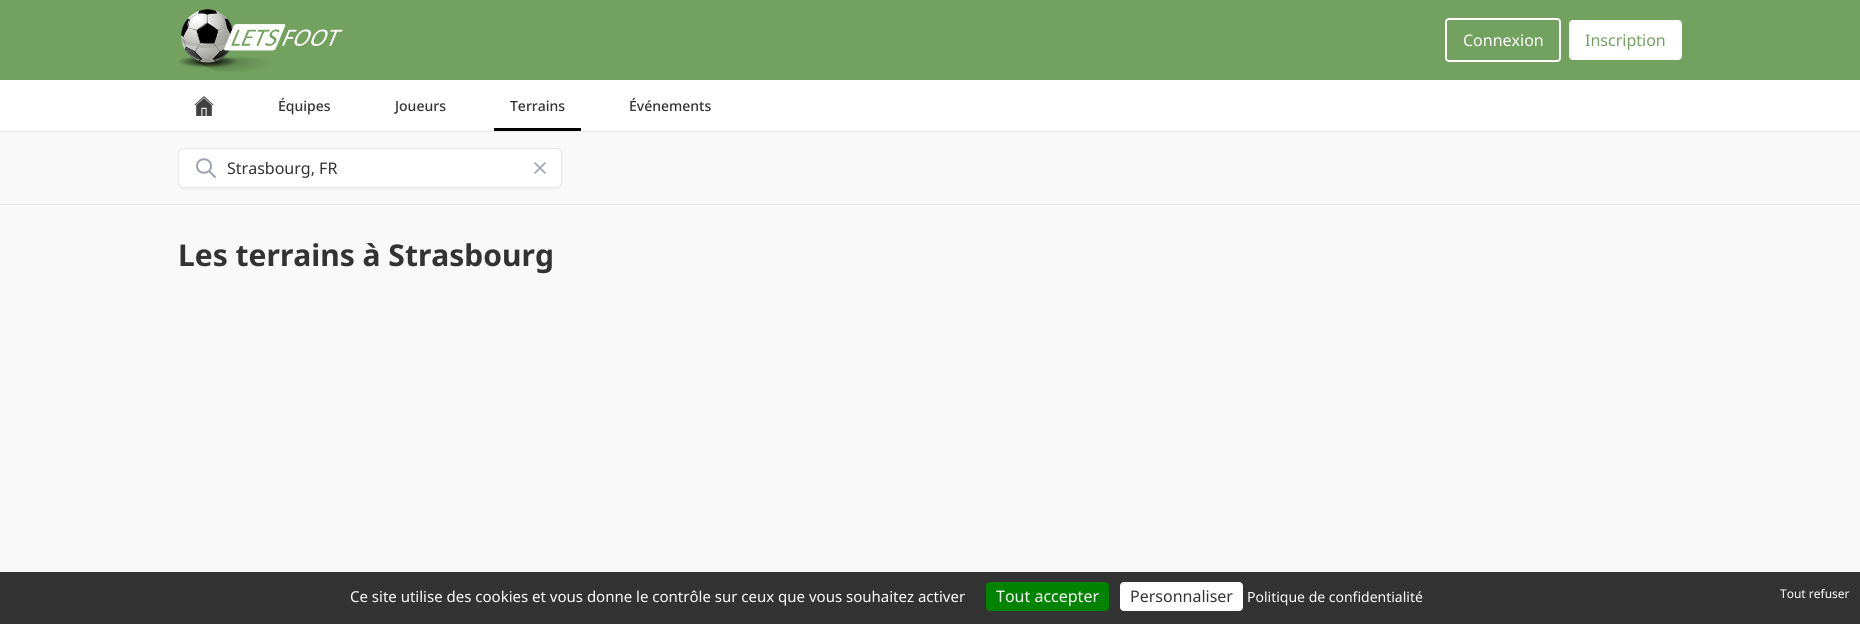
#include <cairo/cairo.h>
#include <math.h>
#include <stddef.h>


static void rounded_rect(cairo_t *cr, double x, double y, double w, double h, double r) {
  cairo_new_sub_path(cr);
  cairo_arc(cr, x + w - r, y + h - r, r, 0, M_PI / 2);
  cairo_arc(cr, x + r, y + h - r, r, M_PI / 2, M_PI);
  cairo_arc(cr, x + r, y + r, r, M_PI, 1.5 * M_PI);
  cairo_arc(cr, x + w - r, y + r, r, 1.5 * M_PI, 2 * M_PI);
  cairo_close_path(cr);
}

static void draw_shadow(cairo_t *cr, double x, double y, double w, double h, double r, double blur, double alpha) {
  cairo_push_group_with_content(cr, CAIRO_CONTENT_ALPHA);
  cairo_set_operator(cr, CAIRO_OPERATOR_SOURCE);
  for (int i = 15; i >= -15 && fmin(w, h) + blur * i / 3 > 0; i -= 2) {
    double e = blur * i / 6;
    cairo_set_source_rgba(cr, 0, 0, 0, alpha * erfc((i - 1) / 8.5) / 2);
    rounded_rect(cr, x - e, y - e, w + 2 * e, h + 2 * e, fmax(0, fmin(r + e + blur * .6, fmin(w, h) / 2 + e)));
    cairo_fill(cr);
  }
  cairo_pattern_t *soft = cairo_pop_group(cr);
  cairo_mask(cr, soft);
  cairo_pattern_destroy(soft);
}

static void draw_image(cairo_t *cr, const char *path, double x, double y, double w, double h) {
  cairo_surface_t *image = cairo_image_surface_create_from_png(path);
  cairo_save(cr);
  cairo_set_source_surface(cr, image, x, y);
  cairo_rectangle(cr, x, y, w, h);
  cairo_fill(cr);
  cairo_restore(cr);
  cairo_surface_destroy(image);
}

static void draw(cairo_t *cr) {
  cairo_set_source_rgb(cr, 249 / 255.0, 249 / 255.0, 249 / 255.0);
  cairo_paint(cr);
  cairo_set_source_rgb(cr, 115 / 255.0, 162 / 255.0, 96 / 255.0);
  cairo_rectangle(cr, 0, 0, 1860, 80);
  cairo_fill(cr);
  draw_image(cr, "images/1.png", 179, 9, 164, 63);
  rounded_rect(cr, 1446, 19, 114, 42, 3);
  cairo_set_source_rgb(cr, 1, 1, 1);
  cairo_stroke(cr);
  rounded_rect(cr, 1569, 20, 113, 40, 4);
  cairo_fill(cr);
  cairo_rectangle(cr, 0, 80, 1860, 51);
  cairo_fill(cr);
  cairo_set_source_rgb(cr, 229 / 255.0, 231 / 255.0, 235 / 255.0);
  cairo_rectangle(cr, 0, 131, 1860, 1);
  cairo_fill(cr);
  draw_image(cr, "images/2.png", 194, 96, 20, 20);
  cairo_set_source_rgb(cr, 0, 0, 0);
  cairo_rectangle(cr, 494, 128, 87, 3);
  cairo_fill(cr);
  cairo_set_source_rgb(cr, 229 / 255.0, 231 / 255.0, 235 / 255.0);
  cairo_rectangle(cr, 0, 204, 1860, 1);
  cairo_fill(cr);
  cairo_set_source_rgb(cr, 0, 0, 0);
  draw_shadow(cr, 178, 149, 384, 40, 6, 1, 0.05);
  cairo_set_source_rgb(cr, 1, 1, 1);
  rounded_rect(cr, 178.5, 148.5, 383, 39, 5.5);
  cairo_fill_preserve(cr);
  cairo_set_source_rgb(cr, 229 / 255.0, 231 / 255.0, 235 / 255.0);
  cairo_set_line_width(cr, 1);
  cairo_stroke(cr);
  cairo_new_path(cr);
  cairo_move_to(cr, 215, 177);
  cairo_line_to(cr, 209, 171);
  cairo_move_to(cr, 211, 166);
  cairo_curve_to(cr, 211, 175, 197, 175, 197, 166);
  cairo_curve_to(cr, 197, 157, 211, 157, 211, 166);
  cairo_close_path(cr);
  cairo_set_source_rgb(cr, 156 / 255.0, 163 / 255.0, 175 / 255.0);
  cairo_set_line_width(cr, 2);
  cairo_set_line_cap(cr, CAIRO_LINE_CAP_ROUND);
  cairo_set_line_join(cr, CAIRO_LINE_JOIN_ROUND);
  cairo_stroke(cr);
  cairo_new_path(cr);
  cairo_move_to(cr, 535, 173);
  cairo_line_to(cr, 545, 163);
  cairo_move_to(cr, 535, 163);
  cairo_line_to(cr, 545, 173);
  cairo_set_line_width(cr, 1.7);
  cairo_stroke(cr);
  cairo_set_source_rgb(cr, 51 / 255.0, 51 / 255.0, 51 / 255.0);
  cairo_rectangle(cr, 0, 572, 1860, 52);
  cairo_fill(cr);
  cairo_set_source_rgb(cr, 0, 131 / 255.0, 0);
  rounded_rect(cr, 986, 582, 123, 29, 4);
  cairo_fill(cr);
  cairo_set_source_rgb(cr, 1, 1, 1);
  rounded_rect(cr, 1120, 582, 123, 29, 4);
  cairo_fill(cr);
  cairo_select_font_face(cr, "Noto Sans", CAIRO_FONT_SLANT_NORMAL, CAIRO_FONT_WEIGHT_NORMAL);
  cairo_set_font_size(cr, 16);
  cairo_move_to(cr, 1463, 46);
  cairo_show_text(cr, "Connexion");
  cairo_set_source_rgb(cr, 115 / 255.0, 162 / 255.0, 96 / 255.0);
  cairo_move_to(cr, 1585, 46);
  cairo_show_text(cr, "Inscription");
  cairo_select_font_face(cr, "Noto Sans Medium", CAIRO_FONT_SLANT_NORMAL, CAIRO_FONT_WEIGHT_NORMAL);
  cairo_set_font_size(cr, 14);
  cairo_set_source_rgb(cr, 51 / 255.0, 51 / 255.0, 51 / 255.0);
  cairo_move_to(cr, 278, 111);
  cairo_show_text(cr, "Équipes");
  cairo_move_to(cr, 395, 111);
  cairo_show_text(cr, "Joueurs");
  cairo_move_to(cr, 510, 111);
  cairo_show_text(cr, "Terrains");
  cairo_move_to(cr, 629, 111);
  cairo_show_text(cr, "Événements");
  cairo_select_font_face(cr, "Noto Sans", CAIRO_FONT_SLANT_NORMAL, CAIRO_FONT_WEIGHT_NORMAL);
  cairo_set_font_size(cr, 16);
  cairo_move_to(cr, 227, 174);
  cairo_show_text(cr, "Strasbourg, FR");
  cairo_select_font_face(cr, "Noto Sans", CAIRO_FONT_SLANT_NORMAL, CAIRO_FONT_WEIGHT_BOLD);
  cairo_set_font_size(cr, 30);
  cairo_move_to(cr, 178, 266);
  cairo_show_text(cr, "Les terrains à Strasbourg");
  cairo_select_font_face(cr, "Noto Sans", CAIRO_FONT_SLANT_NORMAL, CAIRO_FONT_WEIGHT_NORMAL);
  cairo_set_font_size(cr, 15);
  cairo_set_source_rgb(cr, 1, 1, 1);
  cairo_move_to(cr, 350, 602);
  cairo_show_text(cr, "Ce site utilise des cookies et vous donne le contrôle sur ceux que vous souhaitez activer");
  cairo_set_font_size(cr, 16);
  cairo_move_to(cr, 996, 602);
  cairo_show_text(cr, "Tout accepter");
  cairo_set_source_rgb(cr, 51 / 255.0, 51 / 255.0, 51 / 255.0);
  cairo_move_to(cr, 1130, 602);
  cairo_show_text(cr, "Personnaliser");
  cairo_set_font_size(cr, 14);
  cairo_set_source_rgb(cr, 1, 1, 1);
  cairo_move_to(cr, 1247, 602);
  cairo_show_text(cr, "Politique de confidentialité");
  cairo_set_font_size(cr, 12);
  cairo_move_to(cr, 1780, 598);
  cairo_show_text(cr, "Tout refuser");
}

int main(void) {
  cairo_surface_t *surface = cairo_image_surface_create(CAIRO_FORMAT_RGB24, 1860, 624);
  cairo_t *cr = cairo_create(surface);
  cairo_font_options_t *options = cairo_font_options_create();
  cairo_font_options_set_hint_metrics(options, CAIRO_HINT_METRICS_OFF);
  cairo_font_options_set_hint_style(options, CAIRO_HINT_STYLE_NONE);
  cairo_set_font_options(cr, options);
  cairo_set_miter_limit(cr, 4);
  draw(cr);
  cairo_surface_write_to_png(surface, "out.png");
  cairo_font_options_destroy(options);
  cairo_destroy(cr);
  cairo_surface_destroy(surface);
  return 0;
}
